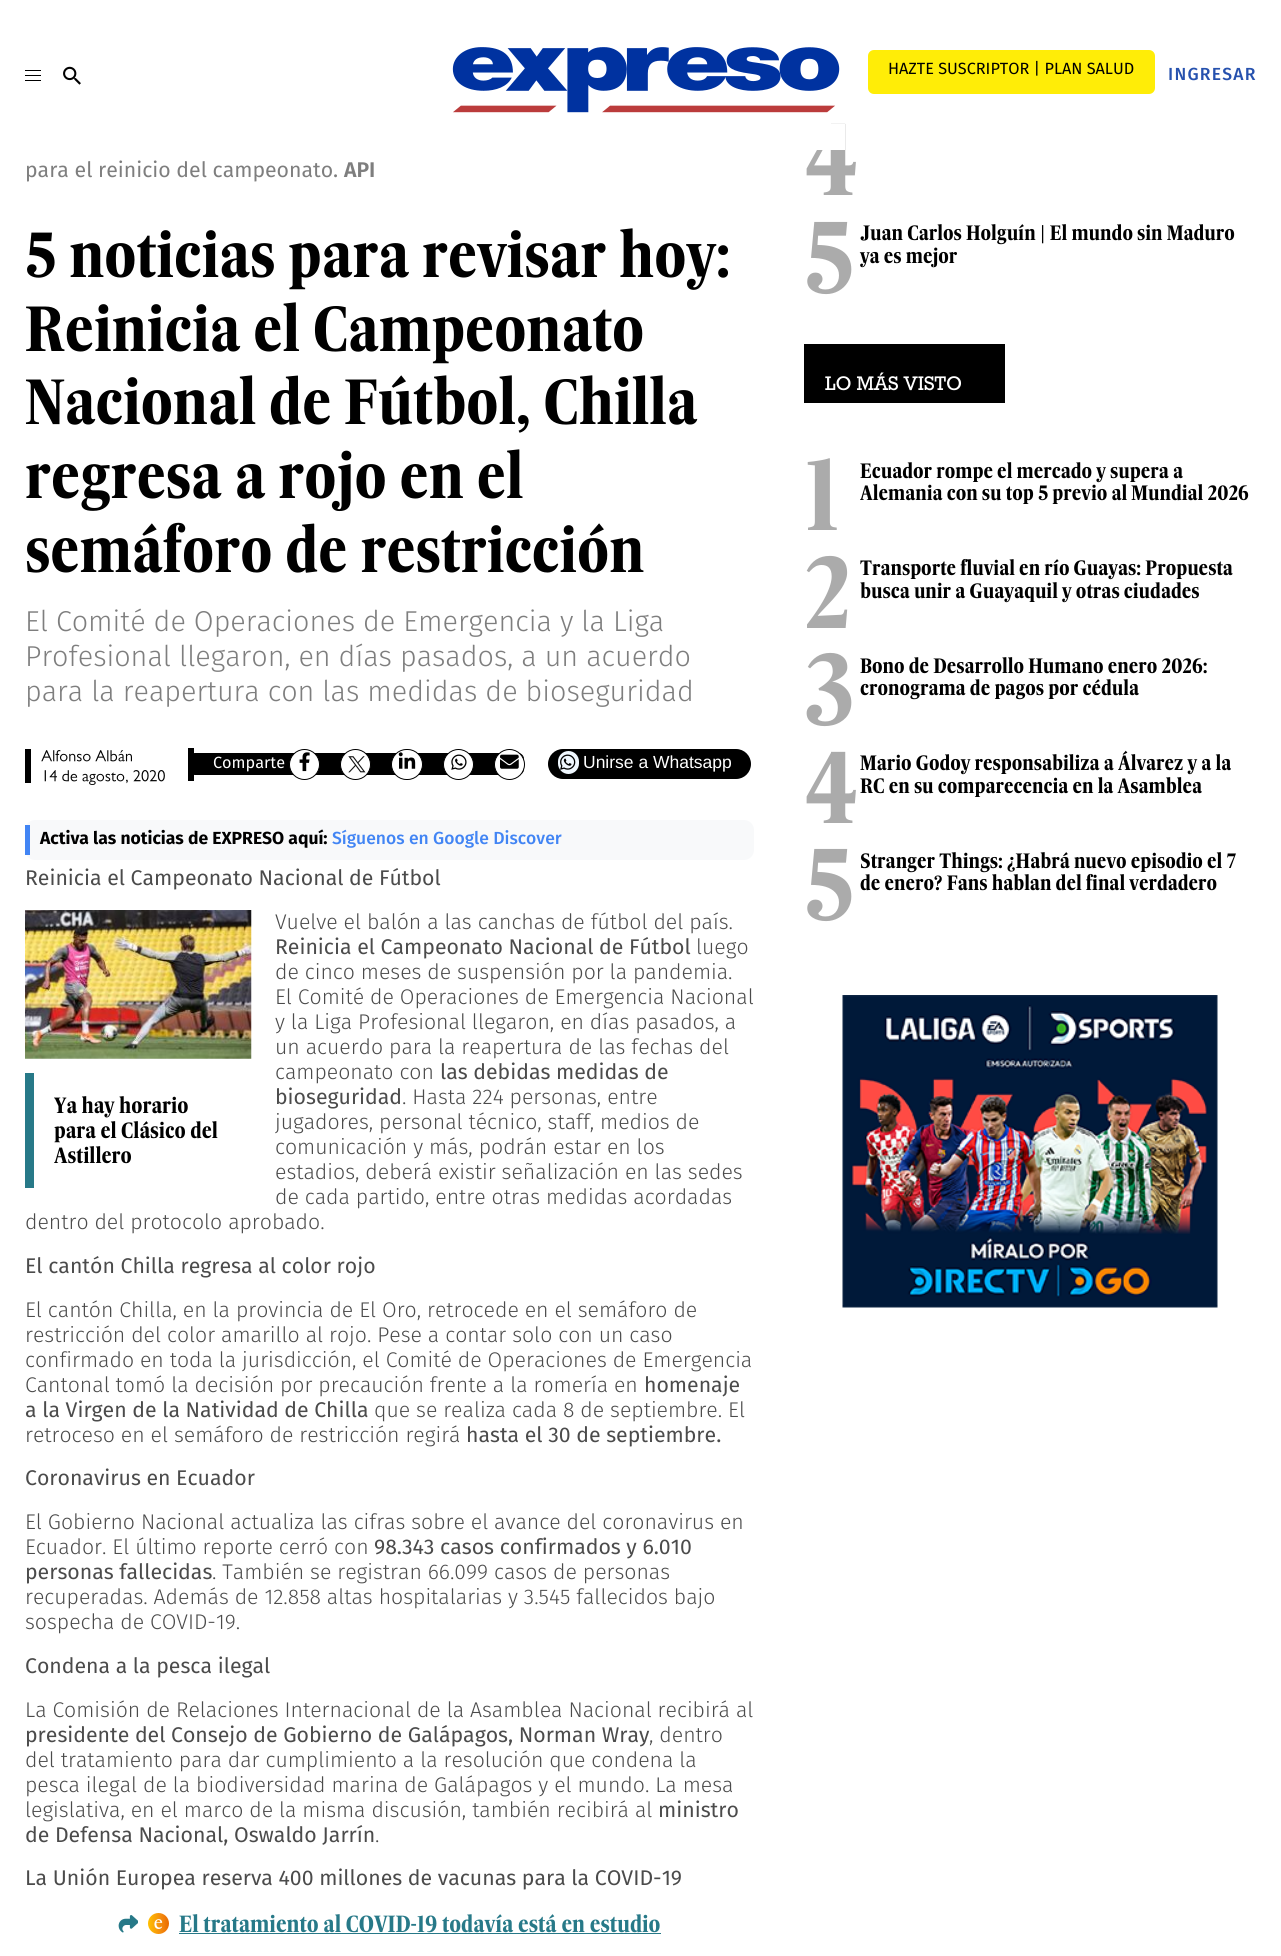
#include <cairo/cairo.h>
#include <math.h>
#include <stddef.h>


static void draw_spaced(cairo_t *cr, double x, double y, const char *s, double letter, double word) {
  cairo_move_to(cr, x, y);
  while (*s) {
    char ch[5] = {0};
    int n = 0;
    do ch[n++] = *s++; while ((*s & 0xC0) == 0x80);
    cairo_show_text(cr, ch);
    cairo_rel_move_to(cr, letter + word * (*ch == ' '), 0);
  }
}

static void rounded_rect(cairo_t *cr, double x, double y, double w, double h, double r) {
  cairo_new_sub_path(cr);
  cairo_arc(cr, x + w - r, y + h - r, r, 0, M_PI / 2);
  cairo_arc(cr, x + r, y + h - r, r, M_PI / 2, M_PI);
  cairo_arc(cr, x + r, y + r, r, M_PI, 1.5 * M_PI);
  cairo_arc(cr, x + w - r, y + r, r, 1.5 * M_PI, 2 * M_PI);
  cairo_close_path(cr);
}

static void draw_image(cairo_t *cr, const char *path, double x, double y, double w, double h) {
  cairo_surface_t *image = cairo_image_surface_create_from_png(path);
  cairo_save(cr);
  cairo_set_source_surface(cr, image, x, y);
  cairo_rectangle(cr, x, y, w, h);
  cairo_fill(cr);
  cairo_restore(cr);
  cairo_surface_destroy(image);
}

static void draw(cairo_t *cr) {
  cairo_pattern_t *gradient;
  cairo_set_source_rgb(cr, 1, 1, 1);
  cairo_paint(cr);
  cairo_set_source_rgb(cr, 0, 0, 0);
  cairo_rectangle(cr, 25, 70, 16, 1);
  cairo_fill(cr);
  cairo_rectangle(cr, 25, 75, 16, 1);
  cairo_fill(cr);
  cairo_rectangle(cr, 25, 80, 16, 1);
  cairo_fill(cr);
  draw_image(cr, "images/1.png", 63, 66, 18, 19);
  draw_image(cr, "images/2.png", 452, 47, 388, 66);
  cairo_set_source_rgb(cr, 1, 237 / 255.0, 7 / 255.0);
  rounded_rect(cr, 868, 50, 287, 44, 6);
  cairo_fill(cr);
  cairo_set_source_rgb(cr, 0, 0, 0);
  cairo_rectangle(cr, 25, 749, 6, 34);
  cairo_fill(cr);
  draw_image(cr, "images/3.png", 41, 750, 91, 12);
  draw_image(cr, "images/4.png", 44, 770, 121, 15);
  cairo_rectangle(cr, 188, 748, 6, 33);
  cairo_fill(cr);
  rounded_rect(cr, 189, 753, 335, 22, 6);
  cairo_fill(cr);
  cairo_set_source_rgb(cr, 1, 1, 1);
  cairo_arc(cr, 355.5, 764.5, 15, 0, 2 * M_PI);
  cairo_fill_preserve(cr);
  cairo_set_source_rgb(cr, 0, 0, 0);
  cairo_set_line_width(cr, 1);
  cairo_stroke(cr);
  draw_image(cr, "images/5.png", 348, 756, 18, 17);
  cairo_set_source_rgb(cr, 1, 1, 1);
  rounded_rect(cr, 391.5, 749.5, 31, 30, 15);
  cairo_fill_preserve(cr);
  cairo_set_source_rgb(cr, 0, 0, 0);
  cairo_stroke(cr);
  draw_image(cr, "images/6.png", 398, 752, 18, 17);
  cairo_set_source_rgb(cr, 1, 1, 1);
  cairo_arc(cr, 458.5, 764.5, 15, 0, 2 * M_PI);
  cairo_fill_preserve(cr);
  cairo_set_source_rgb(cr, 0, 0, 0);
  cairo_stroke(cr);
  draw_image(cr, "images/7.png", 451, 754, 16, 16);
  cairo_set_source_rgb(cr, 1, 1, 1);
  cairo_arc(cr, 509.5, 764.5, 15, 0, 2 * M_PI);
  cairo_fill_preserve(cr);
  cairo_set_source_rgb(cr, 0, 0, 0);
  cairo_stroke(cr);
  draw_image(cr, "images/8.png", 500, 754, 19, 15);
  cairo_set_source_rgb(cr, 1, 1, 1);
  cairo_arc(cr, 304.5, 764.5, 15, 0, 2 * M_PI);
  cairo_fill_preserve(cr);
  cairo_set_source_rgb(cr, 0, 0, 0);
  cairo_stroke(cr);
  draw_image(cr, "images/9.png", 299, 752, 11, 20);
  rounded_rect(cr, 548, 749, 203, 30, 15);
  cairo_fill(cr);
  cairo_set_source_rgb(cr, 240 / 255.0, 248 / 255.0, 1);
  rounded_rect(cr, 558, 751, 21, 23, 10.5);
  cairo_fill(cr);
  draw_image(cr, "images/10.png", 560, 754, 16, 16);
  cairo_set_source_rgb(cr, 248 / 255.0, 249 / 255.0, 250 / 255.0);
  rounded_rect(cr, 25, 820, 729, 40, 10);
  cairo_fill(cr);
  cairo_set_source_rgb(cr, 66 / 255.0, 133 / 255.0, 244 / 255.0);
  cairo_rectangle(cr, 25, 825, 5, 30);
  cairo_fill(cr);
  draw_image(cr, "images/11.png", 25, 910, 227, 149);
  cairo_set_source_rgb(cr, 39 / 255.0, 121 / 255.0, 136 / 255.0);
  cairo_rectangle(cr, 25, 1073, 9, 115);
  cairo_fill(cr);
  draw_image(cr, "images/12.png", 118, 1915, 20, 18);
  gradient = cairo_pattern_create_linear(148, 1923, 169, 1923);
  cairo_pattern_add_color_stop_rgba(gradient, 0, 1, 192 / 255.0, 0, 1);
  cairo_pattern_add_color_stop_rgba(gradient, 0.66, 243 / 255.0, 136 / 255.0, 14 / 255.0, 1);
  cairo_pattern_add_color_stop_rgba(gradient, 1, 234 / 255.0, 105 / 255.0, 0, 1);
  cairo_set_source(cr, gradient);
  cairo_pattern_destroy(gradient);
  cairo_arc(cr, 158.5, 1923.5, 10.5, 0, 2 * M_PI);
  cairo_fill(cr);
  draw_image(cr, "images/13.png", 154, 1919, 9, 10);
  cairo_set_source_rgb(cr, 39 / 255.0, 121 / 255.0, 136 / 255.0);
  cairo_rectangle(cr, 179, 1933, 482, 1);
  cairo_fill(cr);
  cairo_set_source_rgb(cr, 0, 0, 0);
  cairo_rectangle(cr, 804, 344, 201, 59);
  cairo_fill(cr);
  draw_image(cr, "images/14.png", 842, 995, 376, 313);
  cairo_select_font_face(cr, "Fira Sans", CAIRO_FONT_SLANT_NORMAL, CAIRO_FONT_WEIGHT_NORMAL);
  cairo_set_font_size(cr, 16.25);
  cairo_move_to(cr, 888, 74);
  cairo_show_text(cr, "HAZTE SUSCRIPTOR | PLAN SALUD");
  cairo_select_font_face(cr, "Fira Sans Medium", CAIRO_FONT_SLANT_NORMAL, CAIRO_FONT_WEIGHT_NORMAL);
  cairo_set_font_size(cr, 17.5);
  cairo_set_source_rgb(cr, 38 / 255.0, 81 / 255.0, 174 / 255.0);
  draw_spaced(cr, 1168, 80, "INGRESAR", 1.25, 0);
  cairo_select_font_face(cr, "Fira Sans", CAIRO_FONT_SLANT_NORMAL, CAIRO_FONT_WEIGHT_NORMAL);
  cairo_set_font_size(cr, 21.25);
  cairo_set_source_rgb(cr, 126 / 255.0, 126 / 255.0, 126 / 255.0);
  cairo_move_to(cr, 25, 177);
  cairo_show_text(cr, "para el reinicio del campeonato.");
  cairo_select_font_face(cr, "Fira Sans SemiBold", CAIRO_FONT_SLANT_NORMAL, CAIRO_FONT_WEIGHT_NORMAL);
  cairo_move_to(cr, 344, 177);
  cairo_show_text(cr, "API");
  cairo_select_font_face(cr, "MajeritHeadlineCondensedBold", CAIRO_FONT_SLANT_ITALIC, CAIRO_FONT_WEIGHT_BOLD);
  cairo_set_font_size(cr, 61.25);
  cairo_set_source_rgb(cr, 0, 0, 0);
  cairo_move_to(cr, 25, 277);
  cairo_show_text(cr, "5 noticias para revisar hoy:");
  cairo_move_to(cr, 25, 351);
  cairo_show_text(cr, "Reinicia el Campeonato");
  cairo_move_to(cr, 25, 424);
  cairo_show_text(cr, "Nacional de Fútbol, Chilla");
  cairo_move_to(cr, 25, 498);
  cairo_show_text(cr, "regresa a rojo en el");
  cairo_move_to(cr, 25, 572);
  cairo_show_text(cr, "semáforo de restricción");
  cairo_select_font_face(cr, "Fira Sans Light", CAIRO_FONT_SLANT_NORMAL, CAIRO_FONT_WEIGHT_NORMAL);
  cairo_set_font_size(cr, 28.75);
  cairo_set_source_rgb(cr, 126 / 255.0, 126 / 255.0, 126 / 255.0);
  cairo_move_to(cr, 25, 631);
  cairo_show_text(cr, "El Comité de Operaciones de Emergencia y la Liga");
  cairo_move_to(cr, 25, 666);
  cairo_show_text(cr, "Profesional llegaron, en días pasados, a un acuerdo");
  cairo_move_to(cr, 25, 701);
  cairo_show_text(cr, "para la reapertura con las medidas de bioseguridad");
  cairo_select_font_face(cr, "Fira Sans", CAIRO_FONT_SLANT_NORMAL, CAIRO_FONT_WEIGHT_NORMAL);
  cairo_set_font_size(cr, 16.25);
  cairo_set_source_rgb(cr, 1, 1, 1);
  cairo_move_to(cr, 213, 768);
  cairo_show_text(cr, "Comparte");
  cairo_select_font_face(cr, "Liberation Sans", CAIRO_FONT_SLANT_NORMAL, CAIRO_FONT_WEIGHT_NORMAL);
  cairo_set_font_size(cr, 17.5);
  cairo_move_to(cr, 583, 768);
  cairo_show_text(cr, "Unirse a Whatsapp");
  cairo_select_font_face(cr, "Fira Sans", CAIRO_FONT_SLANT_NORMAL, CAIRO_FONT_WEIGHT_BOLD);
  cairo_set_source_rgb(cr, 0, 0, 0);
  cairo_move_to(cr, 40, 844);
  cairo_show_text(cr, "Activa las noticias de EXPRESO aquí:");
  cairo_select_font_face(cr, "Fira Sans Medium", CAIRO_FONT_SLANT_NORMAL, CAIRO_FONT_WEIGHT_NORMAL);
  cairo_set_source_rgb(cr, 66 / 255.0, 133 / 255.0, 244 / 255.0);
  cairo_move_to(cr, 332, 844);
  cairo_show_text(cr, "Síguenos en Google Discover");
  cairo_select_font_face(cr, "Fira Sans", CAIRO_FONT_SLANT_NORMAL, CAIRO_FONT_WEIGHT_NORMAL);
  cairo_set_font_size(cr, 21.25);
  cairo_set_source_rgb(cr, 75 / 255.0, 75 / 255.0, 75 / 255.0);
  cairo_move_to(cr, 25, 885);
  cairo_show_text(cr, "Reinicia el Campeonato Nacional de Fútbol");
  cairo_select_font_face(cr, "Fira Sans Light", CAIRO_FONT_SLANT_NORMAL, CAIRO_FONT_WEIGHT_NORMAL);
  cairo_move_to(cr, 275, 929);
  cairo_show_text(cr, "Vuelve el balón a las canchas de fútbol del país.");
  cairo_select_font_face(cr, "Fira Sans", CAIRO_FONT_SLANT_NORMAL, CAIRO_FONT_WEIGHT_NORMAL);
  cairo_move_to(cr, 275, 954);
  cairo_show_text(cr, "Reinicia el Campeonato Nacional de Fútbol");
  cairo_select_font_face(cr, "Fira Sans Light", CAIRO_FONT_SLANT_NORMAL, CAIRO_FONT_WEIGHT_NORMAL);
  cairo_move_to(cr, 696, 954);
  cairo_show_text(cr, "luego");
  cairo_move_to(cr, 275, 979);
  cairo_show_text(cr, "de cinco meses de suspensión por la pandemia.");
  cairo_move_to(cr, 275, 1004);
  cairo_show_text(cr, "El Comité de Operaciones de Emergencia Nacional");
  cairo_move_to(cr, 275, 1029);
  cairo_show_text(cr, "y la Liga Profesional llegaron, en días pasados, a");
  cairo_move_to(cr, 275, 1054);
  cairo_show_text(cr, "un acuerdo para la reapertura de las fechas del");
  cairo_move_to(cr, 275, 1079);
  cairo_show_text(cr, "campeonato con");
  cairo_select_font_face(cr, "Fira Sans", CAIRO_FONT_SLANT_NORMAL, CAIRO_FONT_WEIGHT_NORMAL);
  cairo_move_to(cr, 440, 1079);
  cairo_show_text(cr, "las debidas medidas de");
  cairo_move_to(cr, 275, 1104);
  cairo_show_text(cr, "bioseguridad");
  cairo_select_font_face(cr, "Fira Sans Light", CAIRO_FONT_SLANT_NORMAL, CAIRO_FONT_WEIGHT_NORMAL);
  cairo_move_to(cr, 402, 1104);
  cairo_show_text(cr, ". Hasta 224 personas, entre");
  cairo_move_to(cr, 275, 1129);
  cairo_show_text(cr, "jugadores, personal técnico, staff, medios de");
  cairo_move_to(cr, 275, 1154);
  cairo_show_text(cr, "comunicación y más, podrán estar en los");
  cairo_move_to(cr, 275, 1179);
  cairo_show_text(cr, "estadios, deberá existir señalización en las sedes");
  cairo_move_to(cr, 275, 1204);
  cairo_show_text(cr, "de cada partido, entre otras medidas acordadas");
  cairo_move_to(cr, 25, 1229);
  cairo_show_text(cr, "dentro del protocolo aprobado.");
  cairo_select_font_face(cr, "MajeritHeadlineCondensedBold", CAIRO_FONT_SLANT_ITALIC, CAIRO_FONT_WEIGHT_BOLD);
  cairo_set_source_rgb(cr, 0, 0, 0);
  cairo_move_to(cr, 54, 1113);
  cairo_show_text(cr, "Ya hay horario");
  cairo_move_to(cr, 54, 1138);
  cairo_show_text(cr, "para el Clásico del");
  cairo_move_to(cr, 54, 1163);
  cairo_show_text(cr, "Astillero");
  cairo_select_font_face(cr, "Fira Sans", CAIRO_FONT_SLANT_NORMAL, CAIRO_FONT_WEIGHT_NORMAL);
  cairo_set_source_rgb(cr, 75 / 255.0, 75 / 255.0, 75 / 255.0);
  cairo_move_to(cr, 25, 1273);
  cairo_show_text(cr, "El cantón Chilla regresa al color rojo");
  cairo_select_font_face(cr, "Fira Sans Light", CAIRO_FONT_SLANT_NORMAL, CAIRO_FONT_WEIGHT_NORMAL);
  cairo_move_to(cr, 25, 1317);
  cairo_show_text(cr, "El cantón Chilla, en la provincia de El Oro, retrocede en el semáforo de");
  cairo_move_to(cr, 25, 1342);
  cairo_show_text(cr, "restricción del color amarillo al rojo. Pese a contar solo con un caso");
  cairo_move_to(cr, 25, 1367);
  cairo_show_text(cr, "confirmado en toda la jurisdicción, el Comité de Operaciones de Emergencia");
  cairo_move_to(cr, 25, 1392);
  cairo_show_text(cr, "Cantonal tomó la decisión por precaución frente a la romería en");
  cairo_select_font_face(cr, "Fira Sans", CAIRO_FONT_SLANT_NORMAL, CAIRO_FONT_WEIGHT_NORMAL);
  cairo_move_to(cr, 644, 1392);
  cairo_show_text(cr, "homenaje");
  cairo_move_to(cr, 25, 1417);
  cairo_show_text(cr, "a la Virgen de la Natividad de Chilla");
  cairo_select_font_face(cr, "Fira Sans Light", CAIRO_FONT_SLANT_NORMAL, CAIRO_FONT_WEIGHT_NORMAL);
  cairo_move_to(cr, 374, 1417);
  cairo_show_text(cr, "que se realiza cada 8 de septiembre. El");
  cairo_move_to(cr, 25, 1442);
  cairo_show_text(cr, "retroceso en el semáforo de restricción regirá");
  cairo_select_font_face(cr, "Fira Sans", CAIRO_FONT_SLANT_NORMAL, CAIRO_FONT_WEIGHT_NORMAL);
  cairo_move_to(cr, 466, 1442);
  cairo_show_text(cr, "hasta el 30 de septiembre.");
  cairo_move_to(cr, 25, 1485);
  cairo_show_text(cr, "Coronavirus en Ecuador");
  cairo_select_font_face(cr, "Fira Sans Light", CAIRO_FONT_SLANT_NORMAL, CAIRO_FONT_WEIGHT_NORMAL);
  cairo_move_to(cr, 25, 1529);
  cairo_show_text(cr, "El Gobierno Nacional actualiza las cifras sobre el avance del coronavirus en");
  cairo_move_to(cr, 25, 1554);
  cairo_show_text(cr, "Ecuador. El último reporte cerró con");
  cairo_select_font_face(cr, "Fira Sans", CAIRO_FONT_SLANT_NORMAL, CAIRO_FONT_WEIGHT_NORMAL);
  cairo_move_to(cr, 374, 1554);
  cairo_show_text(cr, "98.343 casos confirmados y 6.010");
  cairo_move_to(cr, 25, 1579);
  cairo_show_text(cr, "personas fallecidas");
  cairo_select_font_face(cr, "Fira Sans Light", CAIRO_FONT_SLANT_NORMAL, CAIRO_FONT_WEIGHT_NORMAL);
  cairo_move_to(cr, 212, 1579);
  cairo_show_text(cr, ". También se registran 66.099 casos de personas");
  cairo_move_to(cr, 25, 1604);
  cairo_show_text(cr, "recuperadas. Además de 12.858 altas hospitalarias y 3.545 fallecidos bajo");
  cairo_move_to(cr, 25, 1629);
  cairo_show_text(cr, "sospecha de COVID-19.");
  cairo_select_font_face(cr, "Fira Sans", CAIRO_FONT_SLANT_NORMAL, CAIRO_FONT_WEIGHT_NORMAL);
  cairo_move_to(cr, 25, 1673);
  cairo_show_text(cr, "Condena a la pesca ilegal");
  cairo_select_font_face(cr, "Fira Sans Light", CAIRO_FONT_SLANT_NORMAL, CAIRO_FONT_WEIGHT_NORMAL);
  cairo_move_to(cr, 25, 1717);
  cairo_show_text(cr, "La Comisión de Relaciones Internacional de la Asamblea Nacional recibirá al");
  cairo_select_font_face(cr, "Fira Sans", CAIRO_FONT_SLANT_NORMAL, CAIRO_FONT_WEIGHT_NORMAL);
  cairo_move_to(cr, 25, 1742);
  cairo_show_text(cr, "presidente del Consejo de Gobierno de Galápagos, Norman Wray");
  cairo_select_font_face(cr, "Fira Sans Light", CAIRO_FONT_SLANT_NORMAL, CAIRO_FONT_WEIGHT_NORMAL);
  cairo_move_to(cr, 649, 1742);
  cairo_show_text(cr, ", dentro");
  cairo_move_to(cr, 25, 1767);
  cairo_show_text(cr, "del tratamiento para dar cumplimiento a la resolución que condena la");
  cairo_move_to(cr, 25, 1792);
  cairo_show_text(cr, "pesca ilegal de la biodiversidad marina de Galápagos y el mundo. La mesa");
  cairo_move_to(cr, 25, 1817);
  cairo_show_text(cr, "legislativa, en el marco de la misma discusión, también recibirá al");
  cairo_select_font_face(cr, "Fira Sans", CAIRO_FONT_SLANT_NORMAL, CAIRO_FONT_WEIGHT_NORMAL);
  cairo_move_to(cr, 658, 1817);
  cairo_show_text(cr, "ministro");
  cairo_move_to(cr, 25, 1842);
  cairo_show_text(cr, "de Defensa Nacional, Oswaldo Jarrín");
  cairo_select_font_face(cr, "Fira Sans Light", CAIRO_FONT_SLANT_NORMAL, CAIRO_FONT_WEIGHT_NORMAL);
  cairo_move_to(cr, 375, 1842);
  cairo_show_text(cr, ".");
  cairo_select_font_face(cr, "Fira Sans", CAIRO_FONT_SLANT_NORMAL, CAIRO_FONT_WEIGHT_NORMAL);
  cairo_move_to(cr, 25, 1885);
  cairo_show_text(cr, "La Unión Europea reserva 400 millones de vacunas para la COVID-19");
  cairo_select_font_face(cr, "MajeritHeadlineCondensedBold", CAIRO_FONT_SLANT_ITALIC, CAIRO_FONT_WEIGHT_BOLD);
  cairo_set_font_size(cr, 22.5);
  cairo_set_source_rgb(cr, 39 / 255.0, 121 / 255.0, 136 / 255.0);
  cairo_move_to(cr, 179, 1932);
  cairo_show_text(cr, "El tratamiento al COVID-19 todavía está en estudio");
  cairo_set_font_size(cr, 98);
  cairo_set_source_rgb(cr, 171 / 255.0, 171 / 255.0, 171 / 255.0);
  cairo_move_to(cr, 804, 195);
  cairo_show_text(cr, "4");
  cairo_set_source_rgb(cr, 1, 1, 1);
  cairo_rectangle(cr, 816, 124, 29, 26);
  cairo_fill(cr);
  cairo_set_source_rgb(cr, 171 / 255.0, 171 / 255.0, 171 / 255.0);
  cairo_move_to(cr, 804, 293);
  cairo_show_text(cr, "5");
  cairo_set_font_size(cr, 20);
  cairo_set_source_rgb(cr, 0, 0, 0);
  cairo_move_to(cr, 860, 240);
  cairo_show_text(cr, "Juan Carlos Holguín | El mundo sin Maduro");
  cairo_move_to(cr, 860, 263);
  cairo_show_text(cr, "ya es mejor");
  cairo_select_font_face(cr, "Rockwell", CAIRO_FONT_SLANT_NORMAL, CAIRO_FONT_WEIGHT_NORMAL);
  cairo_set_source_rgb(cr, 1, 1, 1);
  cairo_move_to(cr, 825, 390);
  cairo_show_text(cr, "LO MÁS VISTO");
  cairo_select_font_face(cr, "MajeritHeadlineCondensedBold", CAIRO_FONT_SLANT_ITALIC, CAIRO_FONT_WEIGHT_BOLD);
  cairo_set_font_size(cr, 98);
  cairo_set_source_rgb(cr, 171 / 255.0, 171 / 255.0, 171 / 255.0);
  cairo_move_to(cr, 804, 530);
  cairo_show_text(cr, "1");
  cairo_set_font_size(cr, 20);
  cairo_set_source_rgb(cr, 0, 0, 0);
  cairo_move_to(cr, 860, 478);
  cairo_show_text(cr, "Ecuador rompe el mercado y supera a");
  cairo_move_to(cr, 860, 500);
  cairo_show_text(cr, "Alemania con su top 5 previo al Mundial 2026");
  cairo_set_font_size(cr, 98);
  cairo_set_source_rgb(cr, 171 / 255.0, 171 / 255.0, 171 / 255.0);
  cairo_move_to(cr, 804, 628);
  cairo_show_text(cr, "2");
  cairo_set_font_size(cr, 20);
  cairo_set_source_rgb(cr, 0, 0, 0);
  cairo_move_to(cr, 860, 575);
  cairo_show_text(cr, "Transporte fluvial en río Guayas: Propuesta");
  cairo_move_to(cr, 860, 598);
  cairo_show_text(cr, "busca unir a Guayaquil y otras ciudades");
  cairo_set_font_size(cr, 98);
  cairo_set_source_rgb(cr, 171 / 255.0, 171 / 255.0, 171 / 255.0);
  cairo_move_to(cr, 804, 725);
  cairo_show_text(cr, "3");
  cairo_set_font_size(cr, 20);
  cairo_set_source_rgb(cr, 0, 0, 0);
  cairo_move_to(cr, 860, 673);
  cairo_show_text(cr, "Bono de Desarrollo Humano enero 2026:");
  cairo_move_to(cr, 860, 695);
  cairo_show_text(cr, "cronograma de pagos por cédula");
  cairo_set_font_size(cr, 98);
  cairo_set_source_rgb(cr, 171 / 255.0, 171 / 255.0, 171 / 255.0);
  cairo_move_to(cr, 804, 823);
  cairo_show_text(cr, "4");
  cairo_set_font_size(cr, 20);
  cairo_set_source_rgb(cr, 0, 0, 0);
  cairo_move_to(cr, 860, 770);
  cairo_show_text(cr, "Mario Godoy responsabiliza a Álvarez y a la");
  cairo_move_to(cr, 860, 793);
  cairo_show_text(cr, "RC en su comparecencia en la Asamblea");
  cairo_set_font_size(cr, 98);
  cairo_set_source_rgb(cr, 171 / 255.0, 171 / 255.0, 171 / 255.0);
  cairo_move_to(cr, 804, 920);
  cairo_show_text(cr, "5");
  cairo_set_font_size(cr, 20);
  cairo_set_source_rgb(cr, 0, 0, 0);
  cairo_move_to(cr, 860, 868);
  cairo_show_text(cr, "Stranger Things: ¿Habrá nuevo episodio el 7");
  cairo_move_to(cr, 860, 890);
  cairo_show_text(cr, "de enero? Fans hablan del final verdadero");
}

int main(void) {
  cairo_surface_t *surface = cairo_image_surface_create(CAIRO_FORMAT_RGB24, 1281, 1956);
  cairo_t *cr = cairo_create(surface);
  cairo_font_options_t *options = cairo_font_options_create();
  cairo_font_options_set_hint_metrics(options, CAIRO_HINT_METRICS_OFF);
  cairo_font_options_set_hint_style(options, CAIRO_HINT_STYLE_NONE);
  cairo_set_font_options(cr, options);
  cairo_set_miter_limit(cr, 4);
  draw(cr);
  cairo_surface_write_to_png(surface, "out.png");
  cairo_font_options_destroy(options);
  cairo_destroy(cr);
  cairo_surface_destroy(surface);
  return 0;
}
